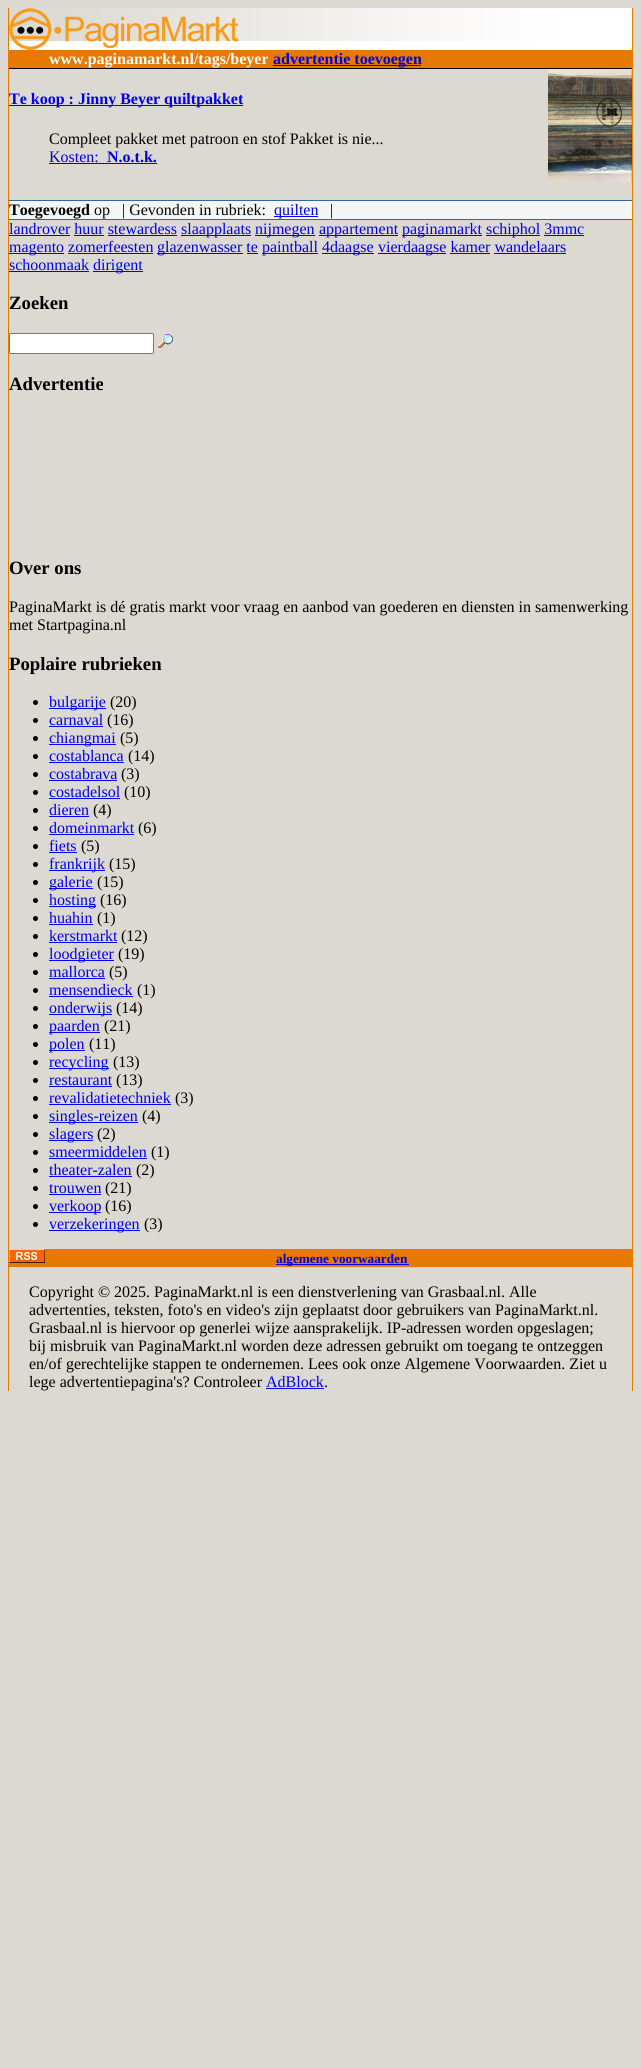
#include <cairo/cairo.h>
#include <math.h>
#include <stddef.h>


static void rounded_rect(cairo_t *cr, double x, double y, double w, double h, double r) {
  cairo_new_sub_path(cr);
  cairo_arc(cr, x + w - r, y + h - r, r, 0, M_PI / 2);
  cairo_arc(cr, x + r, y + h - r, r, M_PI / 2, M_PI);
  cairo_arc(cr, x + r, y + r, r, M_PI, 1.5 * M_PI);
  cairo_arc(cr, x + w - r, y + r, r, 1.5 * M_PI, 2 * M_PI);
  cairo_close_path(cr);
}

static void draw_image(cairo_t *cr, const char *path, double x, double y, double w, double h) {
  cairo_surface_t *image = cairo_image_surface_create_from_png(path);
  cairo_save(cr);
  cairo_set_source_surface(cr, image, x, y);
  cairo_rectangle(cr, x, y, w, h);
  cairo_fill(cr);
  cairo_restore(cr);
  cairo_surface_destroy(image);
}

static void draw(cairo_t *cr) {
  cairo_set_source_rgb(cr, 219 / 255.0, 217 / 255.0, 210 / 255.0);
  cairo_paint(cr);
  cairo_set_source_rgb(cr, 231 / 255.0, 121 / 255.0, 0);
  cairo_rectangle(cr, 632, 8, 1, 1383);
  cairo_fill(cr);
  cairo_rectangle(cr, 8, 8, 1, 1383);
  cairo_fill(cr);
  draw_image(cr, "images/1.png", 9, 8, 623, 42);
  draw_image(cr, "images/2.png", 9, 8, 230, 42);
  cairo_rectangle(cr, 9, 50, 623, 18);
  cairo_fill(cr);
  cairo_set_source_rgb(cr, 0, 0, 238 / 255.0);
  cairo_rectangle(cr, 273, 65, 148, 1);
  cairo_fill(cr);
  cairo_set_source_rgb(cr, 0, 0, 0);
  cairo_rectangle(cr, 9, 68, 623, 1);
  cairo_fill(cr);
  cairo_set_source_rgb(cr, 0, 0, 238 / 255.0);
  cairo_rectangle(cr, 9, 105, 234, 1);
  cairo_fill(cr);
  draw_image(cr, "images/3.png", 548, 69, 84, 113);
  cairo_rectangle(cr, 49, 163, 108, 1);
  cairo_fill(cr);
  cairo_set_source_rgb(cr, 244 / 255.0, 245 / 255.0, 245 / 255.0);
  cairo_rectangle(cr, 9, 201, 623, 18);
  cairo_fill(cr);
  cairo_set_source_rgb(cr, 51 / 255.0, 102 / 255.0, 153 / 255.0);
  cairo_rectangle(cr, 9, 200, 623, 1);
  cairo_fill(cr);
  cairo_rectangle(cr, 9, 219, 623, 1);
  cairo_fill(cr);
  cairo_set_source_rgb(cr, 0, 0, 238 / 255.0);
  cairo_rectangle(cr, 274, 216, 44, 1);
  cairo_fill(cr);
  cairo_rectangle(cr, 9, 235, 61, 1);
  cairo_fill(cr);
  cairo_rectangle(cr, 181, 235, 70, 1);
  cairo_fill(cr);
  cairo_rectangle(cr, 255, 235, 60, 1);
  cairo_fill(cr);
  cairo_rectangle(cr, 319, 235, 79, 1);
  cairo_fill(cr);
  cairo_rectangle(cr, 402, 235, 80, 1);
  cairo_fill(cr);
  cairo_rectangle(cr, 486, 235, 54, 1);
  cairo_fill(cr);
  cairo_rectangle(cr, 74, 235, 30, 1);
  cairo_fill(cr);
  cairo_rectangle(cr, 108, 235, 69, 1);
  cairo_fill(cr);
  cairo_rectangle(cr, 544, 235, 40, 1);
  cairo_fill(cr);
  cairo_rectangle(cr, 9, 253, 55, 1);
  cairo_fill(cr);
  cairo_rectangle(cr, 157, 253, 86, 1);
  cairo_fill(cr);
  cairo_rectangle(cr, 262, 253, 56, 1);
  cairo_fill(cr);
  cairo_rectangle(cr, 322, 253, 52, 1);
  cairo_fill(cr);
  cairo_rectangle(cr, 378, 253, 68, 1);
  cairo_fill(cr);
  cairo_rectangle(cr, 68, 253, 85, 1);
  cairo_fill(cr);
  cairo_rectangle(cr, 247, 253, 11, 1);
  cairo_fill(cr);
  cairo_rectangle(cr, 450, 253, 40, 1);
  cairo_fill(cr);
  cairo_rectangle(cr, 494, 253, 72, 1);
  cairo_fill(cr);
  cairo_rectangle(cr, 9, 271, 80, 1);
  cairo_fill(cr);
  cairo_rectangle(cr, 93, 271, 50, 1);
  cairo_fill(cr);
  cairo_set_source_rgb(cr, 1, 1, 1);
  rounded_rect(cr, 9.5, 333.5, 144, 20, 1.5);
  cairo_fill_preserve(cr);
  cairo_set_source_rgb(cr, 118 / 255.0, 118 / 255.0, 118 / 255.0);
  cairo_set_line_width(cr, 1);
  cairo_stroke(cr);
  draw_image(cr, "images/4.png", 158, 334, 15, 14);
  cairo_set_source_rgb(cr, 0, 0, 0);
  cairo_arc(cr, 35.5, 702.5, 2.5, 0, 2 * M_PI);
  cairo_fill(cr);
  cairo_set_source_rgb(cr, 0, 0, 238 / 255.0);
  cairo_rectangle(cr, 49, 708, 57, 1);
  cairo_fill(cr);
  cairo_set_source_rgb(cr, 0, 0, 0);
  cairo_arc(cr, 35.5, 720.5, 2.5, 0, 2 * M_PI);
  cairo_fill(cr);
  cairo_set_source_rgb(cr, 0, 0, 238 / 255.0);
  cairo_rectangle(cr, 49, 726, 54, 1);
  cairo_fill(cr);
  cairo_set_source_rgb(cr, 0, 0, 0);
  cairo_arc(cr, 35.5, 738.5, 2.5, 0, 2 * M_PI);
  cairo_fill(cr);
  cairo_set_source_rgb(cr, 0, 0, 238 / 255.0);
  cairo_rectangle(cr, 49, 744, 67, 1);
  cairo_fill(cr);
  cairo_set_source_rgb(cr, 0, 0, 0);
  cairo_arc(cr, 35.5, 756.5, 2.5, 0, 2 * M_PI);
  cairo_fill(cr);
  cairo_set_source_rgb(cr, 0, 0, 238 / 255.0);
  cairo_rectangle(cr, 49, 762, 75, 1);
  cairo_fill(cr);
  cairo_set_source_rgb(cr, 0, 0, 0);
  cairo_arc(cr, 35.5, 774.5, 2.5, 0, 2 * M_PI);
  cairo_fill(cr);
  cairo_set_source_rgb(cr, 0, 0, 238 / 255.0);
  cairo_rectangle(cr, 49, 780, 68, 1);
  cairo_fill(cr);
  cairo_set_source_rgb(cr, 0, 0, 0);
  cairo_arc(cr, 35.5, 792.5, 2.5, 0, 2 * M_PI);
  cairo_fill(cr);
  cairo_set_source_rgb(cr, 0, 0, 238 / 255.0);
  cairo_rectangle(cr, 49, 798, 71, 1);
  cairo_fill(cr);
  cairo_set_source_rgb(cr, 0, 0, 0);
  cairo_arc(cr, 35.5, 810.5, 2.5, 0, 2 * M_PI);
  cairo_fill(cr);
  cairo_set_source_rgb(cr, 0, 0, 238 / 255.0);
  cairo_rectangle(cr, 49, 816, 40, 1);
  cairo_fill(cr);
  cairo_set_source_rgb(cr, 0, 0, 0);
  cairo_arc(cr, 35.5, 828.5, 2.5, 0, 2 * M_PI);
  cairo_fill(cr);
  cairo_set_source_rgb(cr, 0, 0, 238 / 255.0);
  cairo_rectangle(cr, 49, 834, 85, 1);
  cairo_fill(cr);
  cairo_set_source_rgb(cr, 0, 0, 0);
  cairo_arc(cr, 35.5, 846.5, 2.5, 0, 2 * M_PI);
  cairo_fill(cr);
  cairo_set_source_rgb(cr, 0, 0, 238 / 255.0);
  cairo_rectangle(cr, 49, 852, 28, 1);
  cairo_fill(cr);
  cairo_set_source_rgb(cr, 0, 0, 0);
  cairo_arc(cr, 35.5, 864.5, 2.5, 0, 2 * M_PI);
  cairo_fill(cr);
  cairo_set_source_rgb(cr, 0, 0, 238 / 255.0);
  cairo_rectangle(cr, 49, 870, 56, 1);
  cairo_fill(cr);
  cairo_set_source_rgb(cr, 0, 0, 0);
  cairo_arc(cr, 35.5, 882.5, 2.5, 0, 2 * M_PI);
  cairo_fill(cr);
  cairo_set_source_rgb(cr, 0, 0, 238 / 255.0);
  cairo_rectangle(cr, 49, 888, 44, 1);
  cairo_fill(cr);
  cairo_set_source_rgb(cr, 0, 0, 0);
  cairo_arc(cr, 35.5, 900.5, 2.5, 0, 2 * M_PI);
  cairo_fill(cr);
  cairo_set_source_rgb(cr, 0, 0, 238 / 255.0);
  cairo_rectangle(cr, 49, 906, 47, 1);
  cairo_fill(cr);
  cairo_set_source_rgb(cr, 0, 0, 0);
  cairo_arc(cr, 35.5, 918.5, 2.5, 0, 2 * M_PI);
  cairo_fill(cr);
  cairo_set_source_rgb(cr, 0, 0, 238 / 255.0);
  cairo_rectangle(cr, 49, 924, 44, 1);
  cairo_fill(cr);
  cairo_set_source_rgb(cr, 0, 0, 0);
  cairo_arc(cr, 35.5, 936.5, 2.5, 0, 2 * M_PI);
  cairo_fill(cr);
  cairo_set_source_rgb(cr, 0, 0, 238 / 255.0);
  cairo_rectangle(cr, 49, 942, 68, 1);
  cairo_fill(cr);
  cairo_set_source_rgb(cr, 0, 0, 0);
  cairo_arc(cr, 35.5, 954.5, 2.5, 0, 2 * M_PI);
  cairo_fill(cr);
  cairo_set_source_rgb(cr, 0, 0, 238 / 255.0);
  cairo_rectangle(cr, 49, 960, 65, 1);
  cairo_fill(cr);
  cairo_set_source_rgb(cr, 0, 0, 0);
  cairo_arc(cr, 35.5, 972.5, 2.5, 0, 2 * M_PI);
  cairo_fill(cr);
  cairo_set_source_rgb(cr, 0, 0, 238 / 255.0);
  cairo_rectangle(cr, 49, 978, 56, 1);
  cairo_fill(cr);
  cairo_set_source_rgb(cr, 0, 0, 0);
  cairo_arc(cr, 35.5, 990.5, 2.5, 0, 2 * M_PI);
  cairo_fill(cr);
  cairo_set_source_rgb(cr, 0, 0, 238 / 255.0);
  cairo_rectangle(cr, 49, 996, 84, 1);
  cairo_fill(cr);
  cairo_set_source_rgb(cr, 0, 0, 0);
  cairo_arc(cr, 35.5, 1008.5, 2.5, 0, 2 * M_PI);
  cairo_fill(cr);
  cairo_set_source_rgb(cr, 0, 0, 238 / 255.0);
  cairo_rectangle(cr, 49, 1014, 63, 1);
  cairo_fill(cr);
  cairo_set_source_rgb(cr, 0, 0, 0);
  cairo_arc(cr, 35.5, 1026.5, 2.5, 0, 2 * M_PI);
  cairo_fill(cr);
  cairo_set_source_rgb(cr, 0, 0, 238 / 255.0);
  cairo_rectangle(cr, 49, 1032, 51, 1);
  cairo_fill(cr);
  cairo_set_source_rgb(cr, 0, 0, 0);
  cairo_arc(cr, 35.5, 1044.5, 2.5, 0, 2 * M_PI);
  cairo_fill(cr);
  cairo_set_source_rgb(cr, 0, 0, 238 / 255.0);
  cairo_rectangle(cr, 49, 1050, 36, 1);
  cairo_fill(cr);
  cairo_set_source_rgb(cr, 0, 0, 0);
  cairo_arc(cr, 35.5, 1062.5, 2.5, 0, 2 * M_PI);
  cairo_fill(cr);
  cairo_set_source_rgb(cr, 0, 0, 238 / 255.0);
  cairo_rectangle(cr, 49, 1068, 60, 1);
  cairo_fill(cr);
  cairo_set_source_rgb(cr, 0, 0, 0);
  cairo_arc(cr, 35.5, 1080.5, 2.5, 0, 2 * M_PI);
  cairo_fill(cr);
  cairo_set_source_rgb(cr, 0, 0, 238 / 255.0);
  cairo_rectangle(cr, 49, 1086, 63, 1);
  cairo_fill(cr);
  cairo_set_source_rgb(cr, 0, 0, 0);
  cairo_arc(cr, 35.5, 1098.5, 2.5, 0, 2 * M_PI);
  cairo_fill(cr);
  cairo_set_source_rgb(cr, 0, 0, 238 / 255.0);
  cairo_rectangle(cr, 49, 1104, 122, 1);
  cairo_fill(cr);
  cairo_set_source_rgb(cr, 0, 0, 0);
  cairo_arc(cr, 35.5, 1116.5, 2.5, 0, 2 * M_PI);
  cairo_fill(cr);
  cairo_set_source_rgb(cr, 0, 0, 238 / 255.0);
  cairo_rectangle(cr, 49, 1122, 89, 1);
  cairo_fill(cr);
  cairo_set_source_rgb(cr, 0, 0, 0);
  cairo_arc(cr, 35.5, 1134.5, 2.5, 0, 2 * M_PI);
  cairo_fill(cr);
  cairo_set_source_rgb(cr, 0, 0, 238 / 255.0);
  cairo_rectangle(cr, 49, 1140, 44, 1);
  cairo_fill(cr);
  cairo_set_source_rgb(cr, 0, 0, 0);
  cairo_arc(cr, 35.5, 1152.5, 2.5, 0, 2 * M_PI);
  cairo_fill(cr);
  cairo_set_source_rgb(cr, 0, 0, 238 / 255.0);
  cairo_rectangle(cr, 49, 1158, 98, 1);
  cairo_fill(cr);
  cairo_set_source_rgb(cr, 0, 0, 0);
  cairo_arc(cr, 35.5, 1170.5, 2.5, 0, 2 * M_PI);
  cairo_fill(cr);
  cairo_set_source_rgb(cr, 0, 0, 238 / 255.0);
  cairo_rectangle(cr, 49, 1176, 83, 1);
  cairo_fill(cr);
  cairo_set_source_rgb(cr, 0, 0, 0);
  cairo_arc(cr, 35.5, 1188.5, 2.5, 0, 2 * M_PI);
  cairo_fill(cr);
  cairo_set_source_rgb(cr, 0, 0, 238 / 255.0);
  cairo_rectangle(cr, 49, 1194, 52, 1);
  cairo_fill(cr);
  cairo_set_source_rgb(cr, 0, 0, 0);
  cairo_arc(cr, 35.5, 1206.5, 2.5, 0, 2 * M_PI);
  cairo_fill(cr);
  cairo_set_source_rgb(cr, 0, 0, 238 / 255.0);
  cairo_rectangle(cr, 49, 1212, 52, 1);
  cairo_fill(cr);
  cairo_set_source_rgb(cr, 0, 0, 0);
  cairo_arc(cr, 35.5, 1224.5, 2.5, 0, 2 * M_PI);
  cairo_fill(cr);
  cairo_set_source_rgb(cr, 0, 0, 238 / 255.0);
  cairo_rectangle(cr, 49, 1230, 91, 1);
  cairo_fill(cr);
  cairo_set_source_rgb(cr, 231 / 255.0, 121 / 255.0, 0);
  cairo_rectangle(cr, 9, 1249, 623, 18);
  cairo_fill(cr);
  draw_image(cr, "images/5.png", 9, 1249, 36, 14);
  cairo_set_source_rgb(cr, 0, 0, 238 / 255.0);
  cairo_rectangle(cr, 276, 1264, 133, 1);
  cairo_fill(cr);
  cairo_rectangle(cr, 266, 1388, 58, 1);
  cairo_fill(cr);
  cairo_select_font_face(cr, "Liberation Serif", CAIRO_FONT_SLANT_NORMAL, CAIRO_FONT_WEIGHT_BOLD);
  cairo_set_font_size(cr, 16);
  cairo_set_source_rgb(cr, 1, 1, 1);
  cairo_move_to(cr, 49, 64);
  cairo_show_text(cr, "www.paginamarkt.nl/tags/beyer");
  cairo_set_source_rgb(cr, 0, 0, 238 / 255.0);
  cairo_move_to(cr, 273, 64);
  cairo_show_text(cr, "advertentie toevoegen");
  cairo_move_to(cr, 9, 104);
  cairo_show_text(cr, "Te koop : Jinny Beyer quiltpakket");
  cairo_select_font_face(cr, "Liberation Serif", CAIRO_FONT_SLANT_NORMAL, CAIRO_FONT_WEIGHT_NORMAL);
  cairo_set_source_rgb(cr, 0, 0, 0);
  cairo_move_to(cr, 49, 144);
  cairo_show_text(cr, "Compleet pakket met patroon en stof Pakket is nie...");
  cairo_set_source_rgb(cr, 0, 0, 238 / 255.0);
  cairo_move_to(cr, 49, 162);
  cairo_show_text(cr, "Kosten:");
  cairo_select_font_face(cr, "Liberation Serif", CAIRO_FONT_SLANT_NORMAL, CAIRO_FONT_WEIGHT_BOLD);
  cairo_move_to(cr, 107, 162);
  cairo_show_text(cr, "N.o.t.k.");
  cairo_set_source_rgb(cr, 0, 0, 0);
  cairo_move_to(cr, 9, 215);
  cairo_show_text(cr, "Toegevoegd");
  cairo_select_font_face(cr, "Liberation Serif", CAIRO_FONT_SLANT_NORMAL, CAIRO_FONT_WEIGHT_NORMAL);
  cairo_move_to(cr, 94, 215);
  cairo_show_text(cr, "op   | Gevonden in rubriek:");
  cairo_set_source_rgb(cr, 0, 0, 238 / 255.0);
  cairo_move_to(cr, 274, 215);
  cairo_show_text(cr, "quilten");
  cairo_set_source_rgb(cr, 0, 0, 0);
  cairo_move_to(cr, 330, 215);
  cairo_show_text(cr, "|");
  cairo_set_source_rgb(cr, 0, 0, 238 / 255.0);
  cairo_move_to(cr, 9, 234);
  cairo_show_text(cr, "landrover huur stewardess");
  cairo_move_to(cr, 181, 234);
  cairo_show_text(cr, "slaapplaats");
  cairo_move_to(cr, 255, 234);
  cairo_show_text(cr, "nijmegen");
  cairo_move_to(cr, 319, 234);
  cairo_show_text(cr, "appartement");
  cairo_move_to(cr, 402, 234);
  cairo_show_text(cr, "paginamarkt");
  cairo_move_to(cr, 486, 234);
  cairo_show_text(cr, "schiphol 3mmc");
  cairo_move_to(cr, 9, 252);
  cairo_show_text(cr, "magento zomerfeesten");
  cairo_move_to(cr, 157, 252);
  cairo_show_text(cr, "glazenwasser te");
  cairo_move_to(cr, 262, 252);
  cairo_show_text(cr, "paintball");
  cairo_move_to(cr, 322, 252);
  cairo_show_text(cr, "4daagse");
  cairo_move_to(cr, 378, 252);
  cairo_show_text(cr, "vierdaagse kamer wandelaars");
  cairo_move_to(cr, 9, 270);
  cairo_show_text(cr, "schoonmaak");
  cairo_move_to(cr, 93, 270);
  cairo_show_text(cr, "dirigent");
  cairo_select_font_face(cr, "Liberation Serif", CAIRO_FONT_SLANT_NORMAL, CAIRO_FONT_WEIGHT_BOLD);
  cairo_set_font_size(cr, 18.75);
  cairo_set_source_rgb(cr, 0, 0, 0);
  cairo_move_to(cr, 9, 309);
  cairo_show_text(cr, "Zoeken");
  cairo_move_to(cr, 9, 390);
  cairo_show_text(cr, "Advertentie");
  cairo_move_to(cr, 9, 574);
  cairo_show_text(cr, "Over ons");
  cairo_select_font_face(cr, "Liberation Serif", CAIRO_FONT_SLANT_NORMAL, CAIRO_FONT_WEIGHT_NORMAL);
  cairo_set_font_size(cr, 16);
  cairo_move_to(cr, 9, 612);
  cairo_show_text(cr, "PaginaMarkt is dé gratis markt voor vraag en aanbod van goederen en diensten in samenwerking");
  cairo_move_to(cr, 9, 630);
  cairo_show_text(cr, "met Startpagina.nl");
  cairo_select_font_face(cr, "Liberation Serif", CAIRO_FONT_SLANT_NORMAL, CAIRO_FONT_WEIGHT_BOLD);
  cairo_set_font_size(cr, 18.75);
  cairo_move_to(cr, 9, 670);
  cairo_show_text(cr, "Poplaire rubrieken");
  cairo_select_font_face(cr, "Liberation Serif", CAIRO_FONT_SLANT_NORMAL, CAIRO_FONT_WEIGHT_NORMAL);
  cairo_set_font_size(cr, 16);
  cairo_set_source_rgb(cr, 0, 0, 238 / 255.0);
  cairo_move_to(cr, 49, 707);
  cairo_show_text(cr, "bulgarije");
  cairo_set_source_rgb(cr, 0, 0, 0);
  cairo_move_to(cr, 110, 707);
  cairo_show_text(cr, "(20)");
  cairo_set_source_rgb(cr, 0, 0, 238 / 255.0);
  cairo_move_to(cr, 49, 725);
  cairo_show_text(cr, "carnaval");
  cairo_set_source_rgb(cr, 0, 0, 0);
  cairo_move_to(cr, 107, 725);
  cairo_show_text(cr, "(16)");
  cairo_set_source_rgb(cr, 0, 0, 238 / 255.0);
  cairo_move_to(cr, 49, 743);
  cairo_show_text(cr, "chiangmai");
  cairo_set_source_rgb(cr, 0, 0, 0);
  cairo_move_to(cr, 120, 743);
  cairo_show_text(cr, "(5)");
  cairo_set_source_rgb(cr, 0, 0, 238 / 255.0);
  cairo_move_to(cr, 49, 761);
  cairo_show_text(cr, "costablanca");
  cairo_set_source_rgb(cr, 0, 0, 0);
  cairo_move_to(cr, 128, 761);
  cairo_show_text(cr, "(14)");
  cairo_set_source_rgb(cr, 0, 0, 238 / 255.0);
  cairo_move_to(cr, 49, 779);
  cairo_show_text(cr, "costabrava");
  cairo_set_source_rgb(cr, 0, 0, 0);
  cairo_move_to(cr, 121, 779);
  cairo_show_text(cr, "(3)");
  cairo_set_source_rgb(cr, 0, 0, 238 / 255.0);
  cairo_move_to(cr, 49, 797);
  cairo_show_text(cr, "costadelsol");
  cairo_set_source_rgb(cr, 0, 0, 0);
  cairo_move_to(cr, 124, 797);
  cairo_show_text(cr, "(10)");
  cairo_set_source_rgb(cr, 0, 0, 238 / 255.0);
  cairo_move_to(cr, 49, 815);
  cairo_show_text(cr, "dieren");
  cairo_set_source_rgb(cr, 0, 0, 0);
  cairo_move_to(cr, 93, 815);
  cairo_show_text(cr, "(4)");
  cairo_set_source_rgb(cr, 0, 0, 238 / 255.0);
  cairo_move_to(cr, 49, 833);
  cairo_show_text(cr, "domeinmarkt");
  cairo_set_source_rgb(cr, 0, 0, 0);
  cairo_move_to(cr, 138, 833);
  cairo_show_text(cr, "(6)");
  cairo_set_source_rgb(cr, 0, 0, 238 / 255.0);
  cairo_move_to(cr, 49, 851);
  cairo_show_text(cr, "fiets");
  cairo_set_source_rgb(cr, 0, 0, 0);
  cairo_move_to(cr, 81, 851);
  cairo_show_text(cr, "(5)");
  cairo_set_source_rgb(cr, 0, 0, 238 / 255.0);
  cairo_move_to(cr, 49, 869);
  cairo_show_text(cr, "frankrijk");
  cairo_set_source_rgb(cr, 0, 0, 0);
  cairo_move_to(cr, 109, 869);
  cairo_show_text(cr, "(15)");
  cairo_set_source_rgb(cr, 0, 0, 238 / 255.0);
  cairo_move_to(cr, 49, 887);
  cairo_show_text(cr, "galerie");
  cairo_set_source_rgb(cr, 0, 0, 0);
  cairo_move_to(cr, 97, 887);
  cairo_show_text(cr, "(15)");
  cairo_set_source_rgb(cr, 0, 0, 238 / 255.0);
  cairo_move_to(cr, 49, 905);
  cairo_show_text(cr, "hosting");
  cairo_set_source_rgb(cr, 0, 0, 0);
  cairo_move_to(cr, 100, 905);
  cairo_show_text(cr, "(16)");
  cairo_set_source_rgb(cr, 0, 0, 238 / 255.0);
  cairo_move_to(cr, 49, 923);
  cairo_show_text(cr, "huahin");
  cairo_set_source_rgb(cr, 0, 0, 0);
  cairo_move_to(cr, 97, 923);
  cairo_show_text(cr, "(1)");
  cairo_set_source_rgb(cr, 0, 0, 238 / 255.0);
  cairo_move_to(cr, 49, 941);
  cairo_show_text(cr, "kerstmarkt");
  cairo_set_source_rgb(cr, 0, 0, 0);
  cairo_move_to(cr, 121, 941);
  cairo_show_text(cr, "(12)");
  cairo_set_source_rgb(cr, 0, 0, 238 / 255.0);
  cairo_move_to(cr, 49, 959);
  cairo_show_text(cr, "loodgieter");
  cairo_set_source_rgb(cr, 0, 0, 0);
  cairo_move_to(cr, 118, 959);
  cairo_show_text(cr, "(19)");
  cairo_set_source_rgb(cr, 0, 0, 238 / 255.0);
  cairo_move_to(cr, 49, 977);
  cairo_show_text(cr, "mallorca");
  cairo_set_source_rgb(cr, 0, 0, 0);
  cairo_move_to(cr, 109, 977);
  cairo_show_text(cr, "(5)");
  cairo_set_source_rgb(cr, 0, 0, 238 / 255.0);
  cairo_move_to(cr, 49, 995);
  cairo_show_text(cr, "mensendieck");
  cairo_set_source_rgb(cr, 0, 0, 0);
  cairo_move_to(cr, 137, 995);
  cairo_show_text(cr, "(1)");
  cairo_set_source_rgb(cr, 0, 0, 238 / 255.0);
  cairo_move_to(cr, 49, 1013);
  cairo_show_text(cr, "onderwijs");
  cairo_set_source_rgb(cr, 0, 0, 0);
  cairo_move_to(cr, 116, 1013);
  cairo_show_text(cr, "(14)");
  cairo_set_source_rgb(cr, 0, 0, 238 / 255.0);
  cairo_move_to(cr, 49, 1031);
  cairo_show_text(cr, "paarden");
  cairo_set_source_rgb(cr, 0, 0, 0);
  cairo_move_to(cr, 104, 1031);
  cairo_show_text(cr, "(21)");
  cairo_set_source_rgb(cr, 0, 0, 238 / 255.0);
  cairo_move_to(cr, 49, 1049);
  cairo_show_text(cr, "polen");
  cairo_set_source_rgb(cr, 0, 0, 0);
  cairo_move_to(cr, 89, 1049);
  cairo_show_text(cr, "(11)");
  cairo_set_source_rgb(cr, 0, 0, 238 / 255.0);
  cairo_move_to(cr, 49, 1067);
  cairo_show_text(cr, "recycling");
  cairo_set_source_rgb(cr, 0, 0, 0);
  cairo_move_to(cr, 113, 1067);
  cairo_show_text(cr, "(13)");
  cairo_set_source_rgb(cr, 0, 0, 238 / 255.0);
  cairo_move_to(cr, 49, 1085);
  cairo_show_text(cr, "restaurant");
  cairo_set_source_rgb(cr, 0, 0, 0);
  cairo_move_to(cr, 116, 1085);
  cairo_show_text(cr, "(13)");
  cairo_set_source_rgb(cr, 0, 0, 238 / 255.0);
  cairo_move_to(cr, 49, 1103);
  cairo_show_text(cr, "revalidatietechniek");
  cairo_set_source_rgb(cr, 0, 0, 0);
  cairo_move_to(cr, 175, 1103);
  cairo_show_text(cr, "(3)");
  cairo_set_source_rgb(cr, 0, 0, 238 / 255.0);
  cairo_move_to(cr, 49, 1121);
  cairo_show_text(cr, "singles-reizen");
  cairo_set_source_rgb(cr, 0, 0, 0);
  cairo_move_to(cr, 142, 1121);
  cairo_show_text(cr, "(4)");
  cairo_set_source_rgb(cr, 0, 0, 238 / 255.0);
  cairo_move_to(cr, 49, 1139);
  cairo_show_text(cr, "slagers");
  cairo_set_source_rgb(cr, 0, 0, 0);
  cairo_move_to(cr, 97, 1139);
  cairo_show_text(cr, "(2)");
  cairo_set_source_rgb(cr, 0, 0, 238 / 255.0);
  cairo_move_to(cr, 49, 1157);
  cairo_show_text(cr, "smeermiddelen");
  cairo_set_source_rgb(cr, 0, 0, 0);
  cairo_move_to(cr, 151, 1157);
  cairo_show_text(cr, "(1)");
  cairo_set_source_rgb(cr, 0, 0, 238 / 255.0);
  cairo_move_to(cr, 49, 1175);
  cairo_show_text(cr, "theater-zalen");
  cairo_set_source_rgb(cr, 0, 0, 0);
  cairo_move_to(cr, 136, 1175);
  cairo_show_text(cr, "(2)");
  cairo_set_source_rgb(cr, 0, 0, 238 / 255.0);
  cairo_move_to(cr, 49, 1193);
  cairo_show_text(cr, "trouwen");
  cairo_set_source_rgb(cr, 0, 0, 0);
  cairo_move_to(cr, 105, 1193);
  cairo_show_text(cr, "(21)");
  cairo_set_source_rgb(cr, 0, 0, 238 / 255.0);
  cairo_move_to(cr, 49, 1211);
  cairo_show_text(cr, "verkoop");
  cairo_set_source_rgb(cr, 0, 0, 0);
  cairo_move_to(cr, 105, 1211);
  cairo_show_text(cr, "(16)");
  cairo_set_source_rgb(cr, 0, 0, 238 / 255.0);
  cairo_move_to(cr, 49, 1229);
  cairo_show_text(cr, "verzekeringen");
  cairo_set_source_rgb(cr, 0, 0, 0);
  cairo_move_to(cr, 144, 1229);
  cairo_show_text(cr, "(3)");
  cairo_select_font_face(cr, "Liberation Serif", CAIRO_FONT_SLANT_NORMAL, CAIRO_FONT_WEIGHT_BOLD);
  cairo_set_font_size(cr, 13.25);
  cairo_set_source_rgb(cr, 0, 0, 238 / 255.0);
  cairo_move_to(cr, 276, 1263);
  cairo_show_text(cr, "algemene voorwaarden");
  cairo_select_font_face(cr, "Liberation Serif", CAIRO_FONT_SLANT_NORMAL, CAIRO_FONT_WEIGHT_NORMAL);
  cairo_set_font_size(cr, 16);
  cairo_set_source_rgb(cr, 0, 0, 0);
  cairo_move_to(cr, 29, 1297);
  cairo_show_text(cr, "Copyright © 2025. PaginaMarkt.nl is een dienstverlening van Grasbaal.nl. Alle");
  cairo_move_to(cr, 29, 1315);
  cairo_show_text(cr, "advertenties, teksten, foto's en video's zijn geplaatst door gebruikers van PaginaMarkt.nl.");
  cairo_move_to(cr, 29, 1333);
  cairo_show_text(cr, "Grasbaal.nl is hiervoor op generlei wijze aansprakelijk. IP-adressen worden opgeslagen;");
  cairo_move_to(cr, 29, 1351);
  cairo_show_text(cr, "bij misbruik van PaginaMarkt.nl worden deze adressen gebruikt om toegang te ontzeggen");
  cairo_move_to(cr, 29, 1369);
  cairo_show_text(cr, "en/of gerechtelijke stappen te ondernemen. Lees ook onze Algemene Voorwaarden. Ziet u");
  cairo_move_to(cr, 29, 1387);
  cairo_show_text(cr, "lege advertentiepagina's? Controleer");
  cairo_set_source_rgb(cr, 0, 0, 238 / 255.0);
  cairo_move_to(cr, 266, 1387);
  cairo_show_text(cr, "AdBlock");
  cairo_set_source_rgb(cr, 0, 0, 0);
  cairo_move_to(cr, 324, 1387);
  cairo_show_text(cr, ".");
}

int main(void) {
  cairo_surface_t *surface = cairo_image_surface_create(CAIRO_FORMAT_RGB24, 641, 2068);
  cairo_t *cr = cairo_create(surface);
  cairo_font_options_t *options = cairo_font_options_create();
  cairo_font_options_set_hint_metrics(options, CAIRO_HINT_METRICS_OFF);
  cairo_font_options_set_hint_style(options, CAIRO_HINT_STYLE_NONE);
  cairo_set_font_options(cr, options);
  cairo_set_miter_limit(cr, 4);
  draw(cr);
  cairo_surface_write_to_png(surface, "out.png");
  cairo_font_options_destroy(options);
  cairo_destroy(cr);
  cairo_surface_destroy(surface);
  return 0;
}
